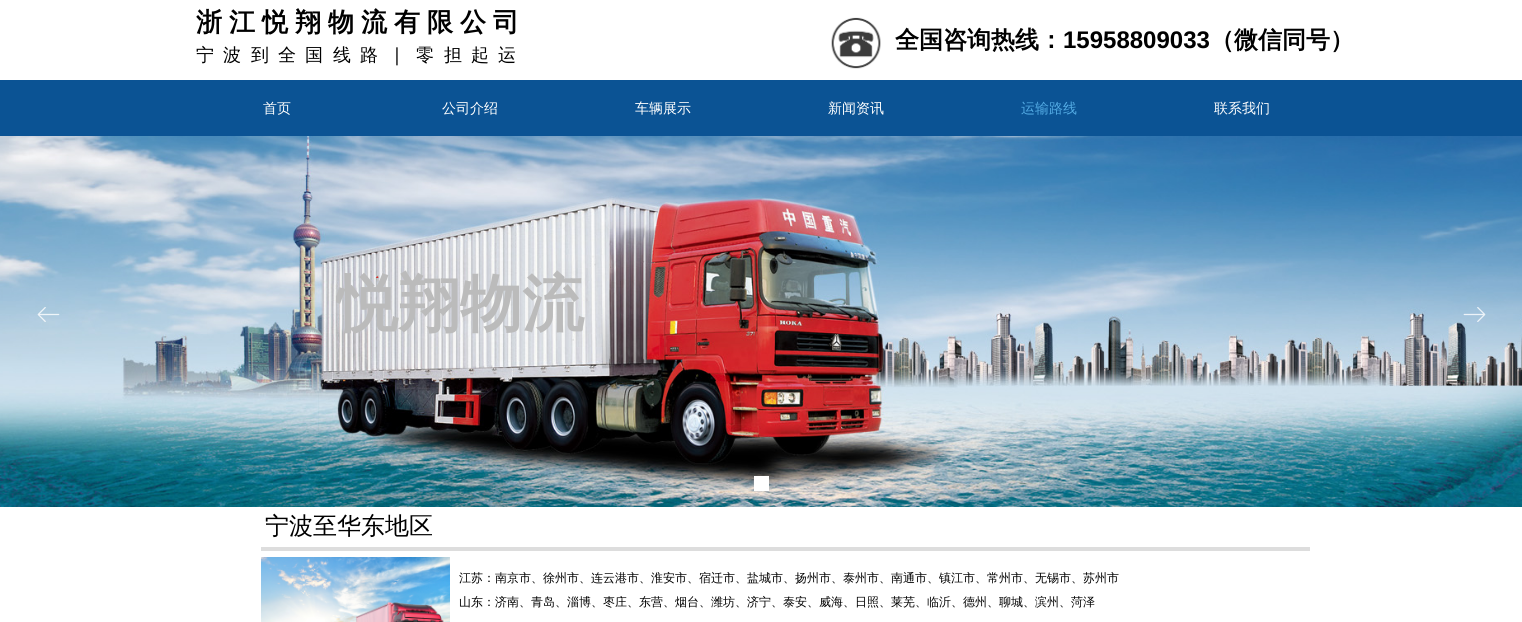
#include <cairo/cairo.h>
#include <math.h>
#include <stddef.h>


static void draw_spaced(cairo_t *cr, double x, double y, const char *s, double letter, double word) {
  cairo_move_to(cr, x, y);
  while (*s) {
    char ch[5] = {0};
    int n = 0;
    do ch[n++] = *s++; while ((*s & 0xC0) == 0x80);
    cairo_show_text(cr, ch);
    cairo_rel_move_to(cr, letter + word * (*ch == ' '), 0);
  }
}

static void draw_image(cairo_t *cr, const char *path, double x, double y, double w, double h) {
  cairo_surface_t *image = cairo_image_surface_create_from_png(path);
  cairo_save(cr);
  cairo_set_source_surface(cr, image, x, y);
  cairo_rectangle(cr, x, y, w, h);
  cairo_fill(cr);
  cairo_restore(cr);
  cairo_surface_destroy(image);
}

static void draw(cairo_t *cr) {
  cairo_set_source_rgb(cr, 1, 1, 1);
  cairo_paint(cr);
  draw_image(cr, "images/1.png", 831, 17, 50, 52);
  cairo_set_source_rgb(cr, 11 / 255.0, 83 / 255.0, 148 / 255.0);
  cairo_rectangle(cr, 0, 80, 1522, 56);
  cairo_fill(cr);
  draw_image(cr, "images/3.png", 0, 136, 1522, 371);
  draw_image(cr, "images/2.png", 37, 307, 23, 15);
  draw_image(cr, "images/4.png", 1463, 307, 23, 15);
  cairo_set_source_rgb(cr, 1, 1, 1);
  cairo_rectangle(cr, 754, 476, 15, 15);
  cairo_fill(cr);
  cairo_set_source_rgb(cr, 221 / 255.0, 221 / 255.0, 221 / 255.0);
  cairo_rectangle(cr, 261, 547, 1049, 4);
  cairo_fill(cr);
  draw_image(cr, "images/5.png", 261, 557, 189, 65);
  cairo_select_font_face(cr, "WenQuanYi Zen Hei", CAIRO_FONT_SLANT_NORMAL, CAIRO_FONT_WEIGHT_BOLD);
  cairo_set_font_size(cr, 26);
  cairo_set_source_rgb(cr, 0, 0, 0);
  draw_spaced(cr, 196, 31, "浙江悦翔物流有限公司", 7, 0);
  cairo_select_font_face(cr, "WenQuanYi Zen Hei Medium", CAIRO_FONT_SLANT_NORMAL, CAIRO_FONT_WEIGHT_NORMAL);
  cairo_set_font_size(cr, 18);
  cairo_move_to(cr, 196, 61);
  cairo_show_text(cr, "宁");
  cairo_move_to(cr, 223, 61);
  cairo_show_text(cr, "波");
  cairo_move_to(cr, 251, 61);
  cairo_show_text(cr, "到");
  cairo_move_to(cr, 278, 61);
  cairo_show_text(cr, "全");
  cairo_move_to(cr, 305, 61);
  cairo_show_text(cr, "国");
  cairo_move_to(cr, 333, 61);
  cairo_show_text(cr, "线");
  cairo_move_to(cr, 360, 61);
  cairo_show_text(cr, "路");
  cairo_select_font_face(cr, "Noto Sans", CAIRO_FONT_SLANT_NORMAL, CAIRO_FONT_WEIGHT_NORMAL);
  cairo_move_to(cr, 392, 61);
  cairo_show_text(cr, "|");
  cairo_select_font_face(cr, "WenQuanYi Zen Hei Medium", CAIRO_FONT_SLANT_NORMAL, CAIRO_FONT_WEIGHT_NORMAL);
  cairo_move_to(cr, 416, 61);
  cairo_show_text(cr, "零");
  cairo_move_to(cr, 444, 61);
  cairo_show_text(cr, "担");
  cairo_move_to(cr, 471, 61);
  cairo_show_text(cr, "起");
  cairo_move_to(cr, 498, 61);
  cairo_show_text(cr, "运");
  cairo_select_font_face(cr, "WenQuanYi Zen Hei", CAIRO_FONT_SLANT_NORMAL, CAIRO_FONT_WEIGHT_BOLD);
  cairo_set_font_size(cr, 24);
  cairo_move_to(cr, 895, 48);
  cairo_show_text(cr, "全国咨询热线：");
  cairo_select_font_face(cr, "Liberation Sans", CAIRO_FONT_SLANT_NORMAL, CAIRO_FONT_WEIGHT_BOLD);
  cairo_move_to(cr, 1063, 48);
  cairo_show_text(cr, "15958809033");
  cairo_select_font_face(cr, "WenQuanYi Zen Hei", CAIRO_FONT_SLANT_NORMAL, CAIRO_FONT_WEIGHT_BOLD);
  cairo_move_to(cr, 1210, 48);
  cairo_show_text(cr, "（微信同号）");
  cairo_select_font_face(cr, "WenQuanYi Zen Hei Medium", CAIRO_FONT_SLANT_NORMAL, CAIRO_FONT_WEIGHT_NORMAL);
  cairo_set_font_size(cr, 14);
  cairo_set_source_rgb(cr, 1, 1, 1);
  cairo_move_to(cr, 263, 113);
  cairo_show_text(cr, "首页");
  cairo_move_to(cr, 442, 113);
  cairo_show_text(cr, "公司介绍");
  cairo_move_to(cr, 635, 113);
  cairo_show_text(cr, "车辆展示");
  cairo_move_to(cr, 828, 113);
  cairo_show_text(cr, "新闻资讯");
  cairo_set_source_rgb(cr, 82 / 255.0, 170 / 255.0, 227 / 255.0);
  cairo_move_to(cr, 1021, 113);
  cairo_show_text(cr, "运输路线");
  cairo_set_source_rgb(cr, 1, 1, 1);
  cairo_move_to(cr, 1214, 113);
  cairo_show_text(cr, "联系我们");
  cairo_save(cr);
  cairo_rectangle(cr, 336, 270, 360, 112);
  cairo_clip(cr);
  cairo_select_font_face(cr, "WenQuanYi Zen Hei", CAIRO_FONT_SLANT_NORMAL, CAIRO_FONT_WEIGHT_BOLD);
  cairo_set_font_size(cr, 62);
  cairo_set_source_rgb(cr, 187 / 255.0, 187 / 255.0, 187 / 255.0);
  cairo_move_to(cr, 336, 325);
  cairo_show_text(cr, "悦翔物流");
  cairo_restore(cr);
  cairo_set_font_size(cr, 24);
  cairo_set_source_rgb(cr, 0, 0, 0);
  cairo_move_to(cr, 265, 534);
  cairo_show_text(cr, "宁波至华东地区");
  cairo_set_font_size(cr, 12);
  cairo_move_to(cr, 459, 582);
  cairo_show_text(cr, "江苏：南京市、徐州市、连云港市、淮安市、宿迁市、盐城市、扬州市、泰州市、南通市、镇江市、常州市、无锡市、苏州市");
  cairo_move_to(cr, 459, 606);
  cairo_show_text(cr, "山东：济南、青岛、淄博、枣庄、东营、烟台、潍坊、济宁、泰安、威海、日照、莱芜、临沂、德州、聊城、滨州、菏泽");
}

int main(void) {
  cairo_surface_t *surface = cairo_image_surface_create(CAIRO_FORMAT_RGB24, 1522, 622);
  cairo_t *cr = cairo_create(surface);
  cairo_font_options_t *options = cairo_font_options_create();
  cairo_font_options_set_hint_metrics(options, CAIRO_HINT_METRICS_OFF);
  cairo_font_options_set_hint_style(options, CAIRO_HINT_STYLE_NONE);
  cairo_set_font_options(cr, options);
  cairo_set_miter_limit(cr, 4);
  draw(cr);
  cairo_surface_write_to_png(surface, "out.png");
  cairo_font_options_destroy(options);
  cairo_destroy(cr);
  cairo_surface_destroy(surface);
  return 0;
}
